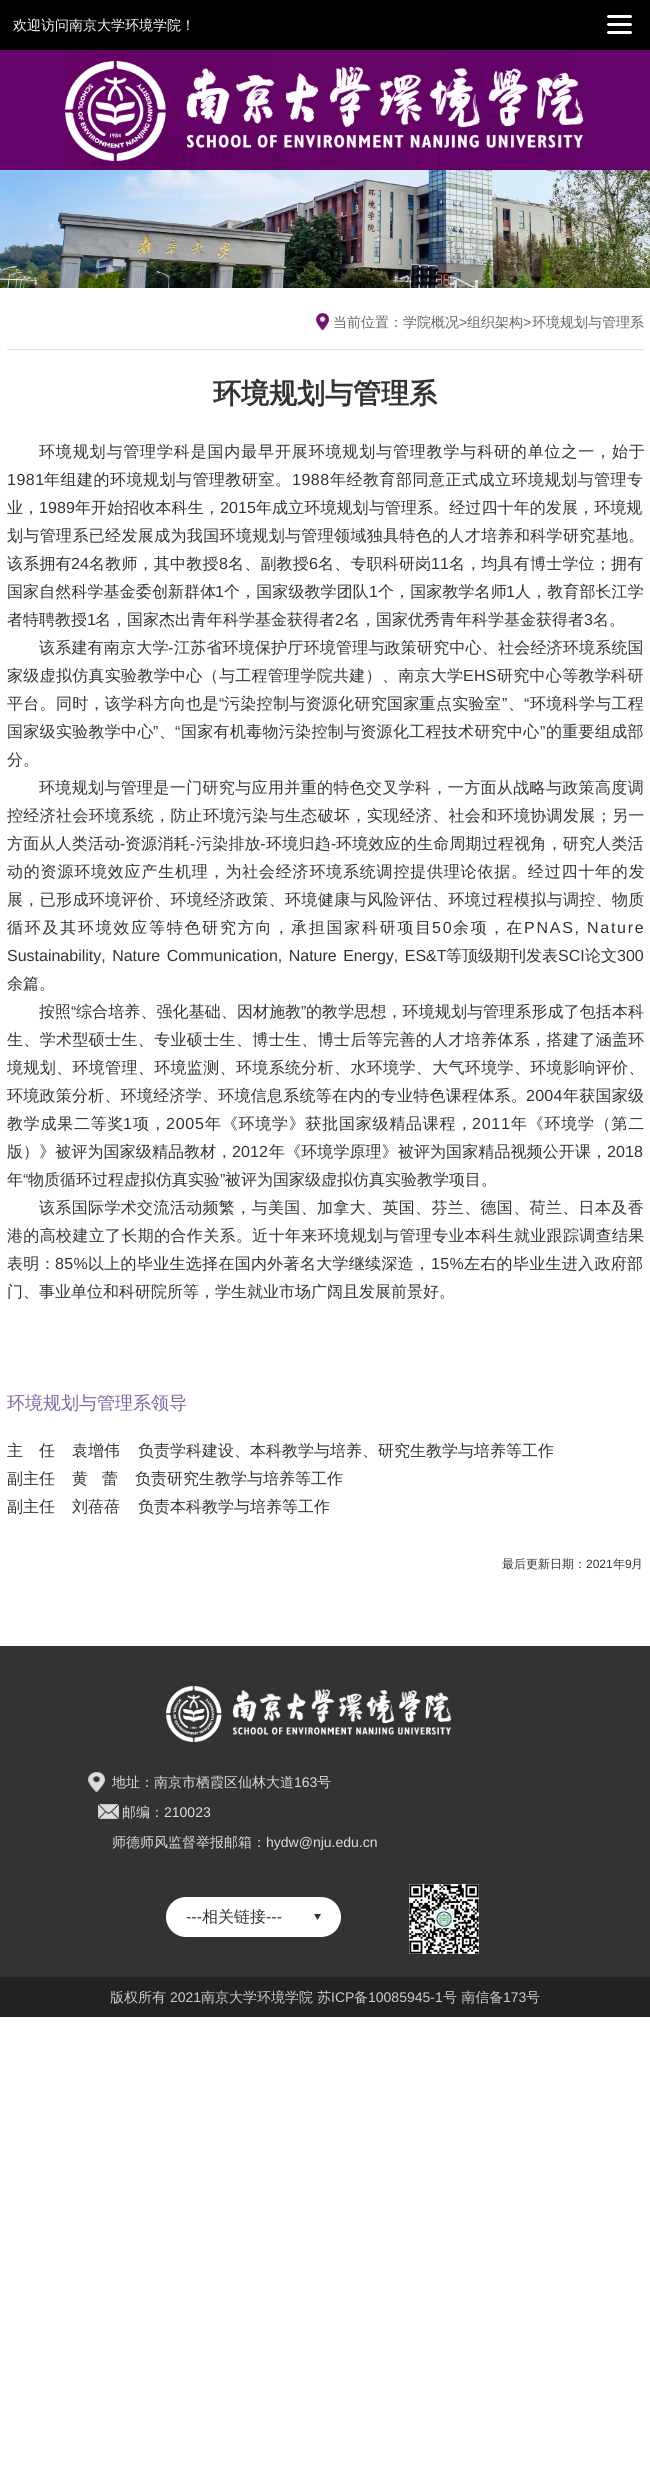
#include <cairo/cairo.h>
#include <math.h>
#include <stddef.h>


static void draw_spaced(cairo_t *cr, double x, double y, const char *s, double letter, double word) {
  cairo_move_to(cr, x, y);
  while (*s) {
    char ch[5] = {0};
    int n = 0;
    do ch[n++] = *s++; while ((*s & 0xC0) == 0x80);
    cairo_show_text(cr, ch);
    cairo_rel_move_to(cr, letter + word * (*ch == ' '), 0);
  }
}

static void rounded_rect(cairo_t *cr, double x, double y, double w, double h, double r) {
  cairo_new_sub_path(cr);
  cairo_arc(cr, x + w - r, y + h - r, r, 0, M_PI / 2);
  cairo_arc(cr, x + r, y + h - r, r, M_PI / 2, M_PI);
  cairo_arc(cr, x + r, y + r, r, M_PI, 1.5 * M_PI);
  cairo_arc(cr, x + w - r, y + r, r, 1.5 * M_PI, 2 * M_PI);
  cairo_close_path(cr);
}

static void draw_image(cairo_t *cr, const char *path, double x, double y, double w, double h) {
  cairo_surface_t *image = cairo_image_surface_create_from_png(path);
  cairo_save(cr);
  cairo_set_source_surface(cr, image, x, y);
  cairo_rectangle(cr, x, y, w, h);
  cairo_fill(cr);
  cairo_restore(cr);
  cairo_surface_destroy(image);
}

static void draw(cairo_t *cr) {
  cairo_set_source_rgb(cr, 1, 1, 1);
  cairo_paint(cr);
  cairo_set_source_rgb(cr, 0, 0, 0);
  cairo_rectangle(cr, 0, 0, 650, 50);
  cairo_fill(cr);
  draw_image(cr, "images/1.png", 607, 15, 25, 19);
  cairo_set_source_rgb(cr, 100 / 255.0, 4 / 255.0, 106 / 255.0);
  cairo_rectangle(cr, 0, 50, 650, 120);
  cairo_fill(cr);
  draw_image(cr, "images/2.png", 65, 50, 520, 120);
  draw_image(cr, "images/3.png", 65, 61, 519, 100);
  draw_image(cr, "images/4.png", 0, 170, 650, 118);
  cairo_set_source_rgb(cr, 221 / 255.0, 221 / 255.0, 221 / 255.0);
  cairo_rectangle(cr, 7, 349, 637, 1);
  cairo_fill(cr);
  draw_image(cr, "images/5.png", 316, 313, 13, 17);
  cairo_set_source_rgb(cr, 51 / 255.0, 51 / 255.0, 51 / 255.0);
  cairo_rectangle(cr, 0, 1646, 650, 331);
  cairo_fill(cr);
  draw_image(cr, "images/6.png", 166, 1686, 286, 56);
  draw_image(cr, "images/7.png", 88, 1772, 17, 20);
  draw_image(cr, "images/8.png", 98, 1804, 21, 15);
  cairo_set_source_rgb(cr, 1, 1, 1);
  rounded_rect(cr, 166, 1897, 175, 40, 20);
  cairo_fill(cr);
  draw_image(cr, "images/9.png", 314, 1914, 7, 6);
  draw_image(cr, "images/10.png", 409, 1884, 70, 70);
  cairo_set_source_rgb(cr, 34 / 255.0, 34 / 255.0, 34 / 255.0);
  cairo_rectangle(cr, 0, 1977, 650, 40);
  cairo_fill(cr);
  cairo_select_font_face(cr, "WenQuanYi Zen Hei Medium", CAIRO_FONT_SLANT_NORMAL, CAIRO_FONT_WEIGHT_NORMAL);
  cairo_set_font_size(cr, 14);
  cairo_set_source_rgb(cr, 1, 1, 1);
  cairo_move_to(cr, 13, 30);
  cairo_show_text(cr, "欢迎访问南京大学环境学院！");
  cairo_set_source_rgb(cr, 102 / 255.0, 102 / 255.0, 102 / 255.0);
  cairo_move_to(cr, 333, 327);
  cairo_show_text(cr, "当前位置：学院概况");
  cairo_select_font_face(cr, "Liberation Sans", CAIRO_FONT_SLANT_NORMAL, CAIRO_FONT_WEIGHT_NORMAL);
  cairo_move_to(cr, 459, 327);
  cairo_show_text(cr, ">");
  cairo_select_font_face(cr, "WenQuanYi Zen Hei Medium", CAIRO_FONT_SLANT_NORMAL, CAIRO_FONT_WEIGHT_NORMAL);
  cairo_move_to(cr, 467, 327);
  cairo_show_text(cr, "组织架构");
  cairo_select_font_face(cr, "Liberation Sans", CAIRO_FONT_SLANT_NORMAL, CAIRO_FONT_WEIGHT_NORMAL);
  cairo_move_to(cr, 523, 327);
  cairo_show_text(cr, ">");
  cairo_select_font_face(cr, "WenQuanYi Zen Hei Medium", CAIRO_FONT_SLANT_NORMAL, CAIRO_FONT_WEIGHT_NORMAL);
  cairo_move_to(cr, 532, 327);
  cairo_show_text(cr, "环境规划与管理系");
  cairo_select_font_face(cr, "WenQuanYi Zen Hei", CAIRO_FONT_SLANT_NORMAL, CAIRO_FONT_WEIGHT_BOLD);
  cairo_set_font_size(cr, 28);
  cairo_set_source_rgb(cr, 51 / 255.0, 51 / 255.0, 51 / 255.0);
  cairo_move_to(cr, 213, 403);
  cairo_show_text(cr, "环境规划与管理系");
  cairo_select_font_face(cr, "WenQuanYi Zen Hei Medium", CAIRO_FONT_SLANT_NORMAL, CAIRO_FONT_WEIGHT_NORMAL);
  cairo_set_font_size(cr, 16);
  draw_spaced(cr, 39, 457, "环境规划与管理学科是国内最早开展环境规划与管理教学与科研的单位之一，始于", 0.85, 0);
  cairo_select_font_face(cr, "Liberation Sans", CAIRO_FONT_SLANT_NORMAL, CAIRO_FONT_WEIGHT_NORMAL);
  draw_spaced(cr, 7, 485, "1981", 0.5, 0);
  cairo_select_font_face(cr, "WenQuanYi Zen Hei Medium", CAIRO_FONT_SLANT_NORMAL, CAIRO_FONT_WEIGHT_NORMAL);
  draw_spaced(cr, 44, 485, "年组建的环境规划与管理教研室。", 0.5, 0);
  cairo_select_font_face(cr, "Liberation Sans", CAIRO_FONT_SLANT_NORMAL, CAIRO_FONT_WEIGHT_NORMAL);
  draw_spaced(cr, 292, 485, "1988", 0.5, 0);
  cairo_select_font_face(cr, "WenQuanYi Zen Hei Medium", CAIRO_FONT_SLANT_NORMAL, CAIRO_FONT_WEIGHT_NORMAL);
  draw_spaced(cr, 330, 485, "年经教育部同意正式成立环境规划与管理专", 0.5, 0);
  draw_spaced(cr, 7, 513, "业，", 0.1, 0);
  cairo_select_font_face(cr, "Liberation Sans", CAIRO_FONT_SLANT_NORMAL, CAIRO_FONT_WEIGHT_NORMAL);
  draw_spaced(cr, 39, 513, "1989", 0.1, 0);
  cairo_select_font_face(cr, "WenQuanYi Zen Hei Medium", CAIRO_FONT_SLANT_NORMAL, CAIRO_FONT_WEIGHT_NORMAL);
  draw_spaced(cr, 75, 513, "年开始招收本科生，", 0.1, 0);
  cairo_select_font_face(cr, "Liberation Sans", CAIRO_FONT_SLANT_NORMAL, CAIRO_FONT_WEIGHT_NORMAL);
  draw_spaced(cr, 220, 513, "2015", 0.1, 0);
  cairo_select_font_face(cr, "WenQuanYi Zen Hei Medium", CAIRO_FONT_SLANT_NORMAL, CAIRO_FONT_WEIGHT_NORMAL);
  draw_spaced(cr, 256, 513, "年成立环境规划与管理系。经过四十年的发展，环境规", 0.1, 0);
  draw_spaced(cr, 7, 541, "划与管理系已经发展成为我国环境规划与管理领域独具特色的人才培养和科学研究基地。", 0.35, 0);
  draw_spaced(cr, 7, 569, "该系拥有", 0.2, 0);
  cairo_select_font_face(cr, "Liberation Sans", CAIRO_FONT_SLANT_NORMAL, CAIRO_FONT_WEIGHT_NORMAL);
  draw_spaced(cr, 71, 569, "24", 0.2, 0);
  cairo_select_font_face(cr, "WenQuanYi Zen Hei Medium", CAIRO_FONT_SLANT_NORMAL, CAIRO_FONT_WEIGHT_NORMAL);
  draw_spaced(cr, 89, 569, "名教师，其中教授", 0.2, 0);
  cairo_select_font_face(cr, "Liberation Sans", CAIRO_FONT_SLANT_NORMAL, CAIRO_FONT_WEIGHT_NORMAL);
  draw_spaced(cr, 219, 569, "8", 0.2, 0);
  cairo_select_font_face(cr, "WenQuanYi Zen Hei Medium", CAIRO_FONT_SLANT_NORMAL, CAIRO_FONT_WEIGHT_NORMAL);
  draw_spaced(cr, 228, 569, "名、副教授", 0.2, 0);
  cairo_select_font_face(cr, "Liberation Sans", CAIRO_FONT_SLANT_NORMAL, CAIRO_FONT_WEIGHT_NORMAL);
  draw_spaced(cr, 309, 569, "6", 0.2, 0);
  cairo_select_font_face(cr, "WenQuanYi Zen Hei Medium", CAIRO_FONT_SLANT_NORMAL, CAIRO_FONT_WEIGHT_NORMAL);
  draw_spaced(cr, 318, 569, "名、专职科研岗", 0.2, 0);
  cairo_select_font_face(cr, "Liberation Sans", CAIRO_FONT_SLANT_NORMAL, CAIRO_FONT_WEIGHT_NORMAL);
  draw_spaced(cr, 431, 569, "11", 0.2, 0);
  cairo_select_font_face(cr, "WenQuanYi Zen Hei Medium", CAIRO_FONT_SLANT_NORMAL, CAIRO_FONT_WEIGHT_NORMAL);
  draw_spaced(cr, 449, 569, "名，均具有博士学位；拥有", 0.2, 0);
  draw_spaced(cr, 7, 597, "国家自然科学基金委创新群体", 0.1, 0);
  cairo_select_font_face(cr, "Liberation Sans", CAIRO_FONT_SLANT_NORMAL, CAIRO_FONT_WEIGHT_NORMAL);
  draw_spaced(cr, 215, 597, "1", 0.1, 0);
  cairo_select_font_face(cr, "WenQuanYi Zen Hei Medium", CAIRO_FONT_SLANT_NORMAL, CAIRO_FONT_WEIGHT_NORMAL);
  draw_spaced(cr, 224, 597, "个，国家级教学团队", 0.1, 0);
  cairo_select_font_face(cr, "Liberation Sans", CAIRO_FONT_SLANT_NORMAL, CAIRO_FONT_WEIGHT_NORMAL);
  draw_spaced(cr, 369, 597, "1", 0.1, 0);
  cairo_select_font_face(cr, "WenQuanYi Zen Hei Medium", CAIRO_FONT_SLANT_NORMAL, CAIRO_FONT_WEIGHT_NORMAL);
  draw_spaced(cr, 378, 597, "个，国家教学名师", 0.1, 0);
  cairo_select_font_face(cr, "Liberation Sans", CAIRO_FONT_SLANT_NORMAL, CAIRO_FONT_WEIGHT_NORMAL);
  draw_spaced(cr, 506, 597, "1", 0.1, 0);
  cairo_select_font_face(cr, "WenQuanYi Zen Hei Medium", CAIRO_FONT_SLANT_NORMAL, CAIRO_FONT_WEIGHT_NORMAL);
  draw_spaced(cr, 515, 597, "人，教育部长江学", 0.1, 0);
  cairo_move_to(cr, 7, 625);
  cairo_show_text(cr, "者特聘教授");
  cairo_select_font_face(cr, "Liberation Sans", CAIRO_FONT_SLANT_NORMAL, CAIRO_FONT_WEIGHT_NORMAL);
  cairo_move_to(cr, 87, 625);
  cairo_show_text(cr, "1");
  cairo_select_font_face(cr, "WenQuanYi Zen Hei Medium", CAIRO_FONT_SLANT_NORMAL, CAIRO_FONT_WEIGHT_NORMAL);
  cairo_move_to(cr, 95, 625);
  cairo_show_text(cr, "名，国家杰出青年科学基金获得者");
  cairo_select_font_face(cr, "Liberation Sans", CAIRO_FONT_SLANT_NORMAL, CAIRO_FONT_WEIGHT_NORMAL);
  cairo_move_to(cr, 335, 625);
  cairo_show_text(cr, "2");
  cairo_select_font_face(cr, "WenQuanYi Zen Hei Medium", CAIRO_FONT_SLANT_NORMAL, CAIRO_FONT_WEIGHT_NORMAL);
  cairo_move_to(cr, 344, 625);
  cairo_show_text(cr, "名，国家优秀青年科学基金获得者");
  cairo_select_font_face(cr, "Liberation Sans", CAIRO_FONT_SLANT_NORMAL, CAIRO_FONT_WEIGHT_NORMAL);
  cairo_move_to(cr, 584, 625);
  cairo_show_text(cr, "3");
  cairo_select_font_face(cr, "WenQuanYi Zen Hei Medium", CAIRO_FONT_SLANT_NORMAL, CAIRO_FONT_WEIGHT_NORMAL);
  cairo_move_to(cr, 593, 625);
  cairo_show_text(cr, "名。");
  draw_spaced(cr, 39, 653, "该系建有南京大学", 0.2, 0);
  cairo_select_font_face(cr, "Liberation Sans", CAIRO_FONT_SLANT_NORMAL, CAIRO_FONT_WEIGHT_NORMAL);
  draw_spaced(cr, 168, 653, "-", 0.2, 0);
  cairo_select_font_face(cr, "WenQuanYi Zen Hei Medium", CAIRO_FONT_SLANT_NORMAL, CAIRO_FONT_WEIGHT_NORMAL);
  draw_spaced(cr, 174, 653, "江苏省环境保护厅环境管理与政策研究中心、社会经济环境系统国", 0.2, 0);
  draw_spaced(cr, 7, 681, "家级虚拟仿真实验教学中心（与工程管理学院共建）、南京大学", 0.3, 0);
  cairo_select_font_face(cr, "Liberation Sans", CAIRO_FONT_SLANT_NORMAL, CAIRO_FONT_WEIGHT_NORMAL);
  draw_spaced(cr, 463, 681, "EHS", 0.3, 0);
  cairo_select_font_face(cr, "WenQuanYi Zen Hei Medium", CAIRO_FONT_SLANT_NORMAL, CAIRO_FONT_WEIGHT_NORMAL);
  draw_spaced(cr, 497, 681, "研究中心等教学科研", 0.3, 0);
  draw_spaced(cr, 7, 709, "平台。同时，该学科方向也是", 0.3, 0);
  cairo_select_font_face(cr, "Liberation Sans", CAIRO_FONT_SLANT_NORMAL, CAIRO_FONT_WEIGHT_NORMAL);
  draw_spaced(cr, 219, 709, "“", 0.3, 0);
  cairo_select_font_face(cr, "WenQuanYi Zen Hei Medium", CAIRO_FONT_SLANT_NORMAL, CAIRO_FONT_WEIGHT_NORMAL);
  draw_spaced(cr, 224, 709, "污染控制与资源化研究国家重点实验室", 0.3, 0);
  cairo_select_font_face(cr, "Liberation Sans", CAIRO_FONT_SLANT_NORMAL, CAIRO_FONT_WEIGHT_NORMAL);
  draw_spaced(cr, 502, 709, "”", 0.3, 0);
  draw_spaced(cr, 524, 709, "“", 0.3, 0);
  cairo_select_font_face(cr, "WenQuanYi Zen Hei Medium", CAIRO_FONT_SLANT_NORMAL, CAIRO_FONT_WEIGHT_NORMAL);
  draw_spaced(cr, 530, 709, "环境科学与工程", 0.3, 0);
  draw_spaced(cr, 508, 709, "、", 0.3, 0);
  draw_spaced(cr, 7, 737, "国家级实验教学中心", 0.3, 0);
  cairo_select_font_face(cr, "Liberation Sans", CAIRO_FONT_SLANT_NORMAL, CAIRO_FONT_WEIGHT_NORMAL);
  draw_spaced(cr, 153, 737, "”", 0.3, 0);
  draw_spaced(cr, 175, 737, "“", 0.3, 0);
  cairo_select_font_face(cr, "WenQuanYi Zen Hei Medium", CAIRO_FONT_SLANT_NORMAL, CAIRO_FONT_WEIGHT_NORMAL);
  draw_spaced(cr, 181, 737, "国家有机毒物污染控制与资源化工程技术研究中心", 0.3, 0);
  cairo_select_font_face(cr, "Liberation Sans", CAIRO_FONT_SLANT_NORMAL, CAIRO_FONT_WEIGHT_NORMAL);
  draw_spaced(cr, 540, 737, "”", 0.3, 0);
  cairo_select_font_face(cr, "WenQuanYi Zen Hei Medium", CAIRO_FONT_SLANT_NORMAL, CAIRO_FONT_WEIGHT_NORMAL);
  draw_spaced(cr, 546, 737, "的重要组成部", 0.3, 0);
  draw_spaced(cr, 159, 737, "、", 0.3, 0);
  cairo_move_to(cr, 7, 765);
  cairo_show_text(cr, "分。");
  draw_spaced(cr, 39, 793, "环境规划与管理是一门研究与应用并重的特色交叉学科，一方面从战略与政策高度调", 0.35, 0);
  draw_spaced(cr, 7, 821, "控经济社会环境系统，防止环境污染与生态破坏，实现经济、社会和环境协调发展；另一", 0.35, 0);
  draw_spaced(cr, 7, 849, "方面从人类活动", 0.2, 0);
  cairo_select_font_face(cr, "Liberation Sans", CAIRO_FONT_SLANT_NORMAL, CAIRO_FONT_WEIGHT_NORMAL);
  draw_spaced(cr, 120, 849, "-", 0.2, 0);
  cairo_select_font_face(cr, "WenQuanYi Zen Hei Medium", CAIRO_FONT_SLANT_NORMAL, CAIRO_FONT_WEIGHT_NORMAL);
  draw_spaced(cr, 125, 849, "资源消耗", 0.2, 0);
  cairo_select_font_face(cr, "Liberation Sans", CAIRO_FONT_SLANT_NORMAL, CAIRO_FONT_WEIGHT_NORMAL);
  draw_spaced(cr, 190, 849, "-", 0.2, 0);
  cairo_select_font_face(cr, "WenQuanYi Zen Hei Medium", CAIRO_FONT_SLANT_NORMAL, CAIRO_FONT_WEIGHT_NORMAL);
  draw_spaced(cr, 196, 849, "污染排放", 0.2, 0);
  cairo_select_font_face(cr, "Liberation Sans", CAIRO_FONT_SLANT_NORMAL, CAIRO_FONT_WEIGHT_NORMAL);
  draw_spaced(cr, 260, 849, "-", 0.2, 0);
  cairo_select_font_face(cr, "WenQuanYi Zen Hei Medium", CAIRO_FONT_SLANT_NORMAL, CAIRO_FONT_WEIGHT_NORMAL);
  draw_spaced(cr, 266, 849, "环境归趋", 0.2, 0);
  cairo_select_font_face(cr, "Liberation Sans", CAIRO_FONT_SLANT_NORMAL, CAIRO_FONT_WEIGHT_NORMAL);
  draw_spaced(cr, 331, 849, "-", 0.2, 0);
  cairo_select_font_face(cr, "WenQuanYi Zen Hei Medium", CAIRO_FONT_SLANT_NORMAL, CAIRO_FONT_WEIGHT_NORMAL);
  draw_spaced(cr, 336, 849, "环境效应的生命周期过程视角，研究人类活", 0.2, 0);
  draw_spaced(cr, 7, 877, "动的资源环境效应产生机理，为社会经济环境系统调控提供理论依据。经过四十年的发", 0.8, 0);
  draw_spaced(cr, 7, 905, "展，已形成环境评价、环境经济政策、环境健康与风险评估、环境过程模拟与调控、物质", 0.35, 0);
  draw_spaced(cr, 7, 933, "循环及其环境效应等特色研究方向，承担国家科研项目", 1.75, 0);
  cairo_select_font_face(cr, "Liberation Sans", CAIRO_FONT_SLANT_NORMAL, CAIRO_FONT_WEIGHT_NORMAL);
  draw_spaced(cr, 432, 933, "50", 1.75, 0);
  cairo_select_font_face(cr, "WenQuanYi Zen Hei Medium", CAIRO_FONT_SLANT_NORMAL, CAIRO_FONT_WEIGHT_NORMAL);
  draw_spaced(cr, 453, 933, "余项，在", 1.75, 0);
  cairo_select_font_face(cr, "Liberation Sans", CAIRO_FONT_SLANT_NORMAL, CAIRO_FONT_WEIGHT_NORMAL);
  draw_spaced(cr, 524, 933, "PNAS, Nature", 1.75, 0);
  draw_spaced(cr, 7, 961, "Sustainability, Nature Communication, Nature Energy, ES&T", 0, 2);
  cairo_select_font_face(cr, "WenQuanYi Zen Hei Medium", CAIRO_FONT_SLANT_NORMAL, CAIRO_FONT_WEIGHT_NORMAL);
  cairo_move_to(cr, 446, 961);
  cairo_show_text(cr, "等顶级期刊发表");
  cairo_select_font_face(cr, "Liberation Sans", CAIRO_FONT_SLANT_NORMAL, CAIRO_FONT_WEIGHT_NORMAL);
  cairo_move_to(cr, 558, 961);
  cairo_show_text(cr, "SCI");
  cairo_select_font_face(cr, "WenQuanYi Zen Hei Medium", CAIRO_FONT_SLANT_NORMAL, CAIRO_FONT_WEIGHT_NORMAL);
  cairo_move_to(cr, 585, 961);
  cairo_show_text(cr, "论文");
  cairo_select_font_face(cr, "Liberation Sans", CAIRO_FONT_SLANT_NORMAL, CAIRO_FONT_WEIGHT_NORMAL);
  cairo_move_to(cr, 617, 961);
  cairo_show_text(cr, "300");
  cairo_select_font_face(cr, "WenQuanYi Zen Hei Medium", CAIRO_FONT_SLANT_NORMAL, CAIRO_FONT_WEIGHT_NORMAL);
  cairo_move_to(cr, 7, 989);
  cairo_show_text(cr, "余篇。");
  draw_spaced(cr, 39, 1017, "按照", 0.1, 0);
  cairo_select_font_face(cr, "Liberation Sans", CAIRO_FONT_SLANT_NORMAL, CAIRO_FONT_WEIGHT_NORMAL);
  draw_spaced(cr, 71, 1017, "“", 0.1, 0);
  cairo_select_font_face(cr, "WenQuanYi Zen Hei Medium", CAIRO_FONT_SLANT_NORMAL, CAIRO_FONT_WEIGHT_NORMAL);
  draw_spaced(cr, 76, 1017, "综合培养、强化基础、因材施教", 0.1, 0);
  cairo_select_font_face(cr, "Liberation Sans", CAIRO_FONT_SLANT_NORMAL, CAIRO_FONT_WEIGHT_NORMAL);
  draw_spaced(cr, 301, 1017, "”", 0.1, 0);
  cairo_select_font_face(cr, "WenQuanYi Zen Hei Medium", CAIRO_FONT_SLANT_NORMAL, CAIRO_FONT_WEIGHT_NORMAL);
  draw_spaced(cr, 306, 1017, "的教学思想，环境规划与管理系形成了包括本科", 0.1, 0);
  draw_spaced(cr, 7, 1045, "生、学术型硕士生、专业硕士生、博士生、博士后等完善的人才培养体系，搭建了涵盖环", 0.35, 0);
  draw_spaced(cr, 7, 1073, "境规划、环境管理、环境监测、环境系统分析、水环境学、大气环境学、环境影响评价、", 0.35, 0);
  draw_spaced(cr, 7, 1101, "环境政策分析、环境经济学、环境信息系统等在内的专业特色课程体系。", 0.25, 0);
  cairo_select_font_face(cr, "Liberation Sans", CAIRO_FONT_SLANT_NORMAL, CAIRO_FONT_WEIGHT_NORMAL);
  draw_spaced(cr, 526, 1101, "2004", 0.25, 0);
  cairo_select_font_face(cr, "WenQuanYi Zen Hei Medium", CAIRO_FONT_SLANT_NORMAL, CAIRO_FONT_WEIGHT_NORMAL);
  draw_spaced(cr, 563, 1101, "年获国家级", 0.25, 0);
  draw_spaced(cr, 7, 1129, "教学成果二等奖", 0.75, 0);
  cairo_select_font_face(cr, "Liberation Sans", CAIRO_FONT_SLANT_NORMAL, CAIRO_FONT_WEIGHT_NORMAL);
  draw_spaced(cr, 123, 1129, "1", 0.75, 0);
  cairo_select_font_face(cr, "WenQuanYi Zen Hei Medium", CAIRO_FONT_SLANT_NORMAL, CAIRO_FONT_WEIGHT_NORMAL);
  draw_spaced(cr, 133, 1129, "项，", 0.75, 0);
  cairo_select_font_face(cr, "Liberation Sans", CAIRO_FONT_SLANT_NORMAL, CAIRO_FONT_WEIGHT_NORMAL);
  draw_spaced(cr, 166, 1129, "2005", 0.75, 0);
  cairo_select_font_face(cr, "WenQuanYi Zen Hei Medium", CAIRO_FONT_SLANT_NORMAL, CAIRO_FONT_WEIGHT_NORMAL);
  draw_spaced(cr, 205, 1129, "年《环境学》获批国家级精品课程，", 0.75, 0);
  cairo_select_font_face(cr, "Liberation Sans", CAIRO_FONT_SLANT_NORMAL, CAIRO_FONT_WEIGHT_NORMAL);
  draw_spaced(cr, 472, 1129, "2011", 0.75, 0);
  cairo_select_font_face(cr, "WenQuanYi Zen Hei Medium", CAIRO_FONT_SLANT_NORMAL, CAIRO_FONT_WEIGHT_NORMAL);
  draw_spaced(cr, 511, 1129, "年《环境学（第二", 0.75, 0);
  draw_spaced(cr, 7, 1157, "版）》被评为国家级精品教材，", 0.1, 0);
  cairo_select_font_face(cr, "Liberation Sans", CAIRO_FONT_SLANT_NORMAL, CAIRO_FONT_WEIGHT_NORMAL);
  draw_spaced(cr, 232, 1157, "2012", 0.1, 0);
  cairo_select_font_face(cr, "WenQuanYi Zen Hei Medium", CAIRO_FONT_SLANT_NORMAL, CAIRO_FONT_WEIGHT_NORMAL);
  draw_spaced(cr, 269, 1157, "年《环境学原理》被评为国家精品视频公开课，", 0.1, 0);
  cairo_select_font_face(cr, "Liberation Sans", CAIRO_FONT_SLANT_NORMAL, CAIRO_FONT_WEIGHT_NORMAL);
  draw_spaced(cr, 607, 1157, "2018", 0.1, 0);
  cairo_select_font_face(cr, "WenQuanYi Zen Hei Medium", CAIRO_FONT_SLANT_NORMAL, CAIRO_FONT_WEIGHT_NORMAL);
  cairo_move_to(cr, 7, 1185);
  cairo_show_text(cr, "年");
  cairo_select_font_face(cr, "Liberation Sans", CAIRO_FONT_SLANT_NORMAL, CAIRO_FONT_WEIGHT_NORMAL);
  cairo_move_to(cr, 23, 1185);
  cairo_show_text(cr, "“");
  cairo_select_font_face(cr, "WenQuanYi Zen Hei Medium", CAIRO_FONT_SLANT_NORMAL, CAIRO_FONT_WEIGHT_NORMAL);
  cairo_move_to(cr, 28, 1185);
  cairo_show_text(cr, "物质循环过程虚拟仿真实验");
  cairo_select_font_face(cr, "Liberation Sans", CAIRO_FONT_SLANT_NORMAL, CAIRO_FONT_WEIGHT_NORMAL);
  cairo_move_to(cr, 220, 1185);
  cairo_show_text(cr, "”");
  cairo_select_font_face(cr, "WenQuanYi Zen Hei Medium", CAIRO_FONT_SLANT_NORMAL, CAIRO_FONT_WEIGHT_NORMAL);
  cairo_move_to(cr, 225, 1185);
  cairo_show_text(cr, "被评为国家级虚拟仿真实验教学项目。");
  draw_spaced(cr, 39, 1213, "该系国际学术交流活动频繁，与美国、加拿大、英国、芬兰、德国、荷兰、日本及香", 0.35, 0);
  draw_spaced(cr, 7, 1241, "港的高校建立了长期的合作关系。近十年来环境规划与管理专业本科生就业跟踪调查结果", 0.35, 0);
  draw_spaced(cr, 7, 1269, "表明：", 0.3, 0);
  cairo_select_font_face(cr, "Liberation Sans", CAIRO_FONT_SLANT_NORMAL, CAIRO_FONT_WEIGHT_NORMAL);
  draw_spaced(cr, 55, 1269, "85%", 0.3, 0);
  cairo_select_font_face(cr, "WenQuanYi Zen Hei Medium", CAIRO_FONT_SLANT_NORMAL, CAIRO_FONT_WEIGHT_NORMAL);
  draw_spaced(cr, 88, 1269, "以上的毕业生选择在国内外著名大学继续深造，", 0.3, 0);
  cairo_select_font_face(cr, "Liberation Sans", CAIRO_FONT_SLANT_NORMAL, CAIRO_FONT_WEIGHT_NORMAL);
  draw_spaced(cr, 431, 1269, "15%", 0.3, 0);
  cairo_select_font_face(cr, "WenQuanYi Zen Hei Medium", CAIRO_FONT_SLANT_NORMAL, CAIRO_FONT_WEIGHT_NORMAL);
  draw_spaced(cr, 464, 1269, "左右的毕业生进入政府部", 0.3, 0);
  cairo_move_to(cr, 7, 1297);
  cairo_show_text(cr, "门、事业单位和科研院所等，学生就业市场广阔且发展前景好。");
  cairo_set_font_size(cr, 18);
  cairo_set_source_rgb(cr, 128 / 255.0, 100 / 255.0, 162 / 255.0);
  cairo_move_to(cr, 7, 1409);
  cairo_show_text(cr, "环境规划与管理系领导");
  cairo_set_font_size(cr, 16);
  cairo_set_source_rgb(cr, 51 / 255.0, 51 / 255.0, 51 / 255.0);
  cairo_move_to(cr, 7, 1456);
  cairo_show_text(cr, "主　任");
  cairo_move_to(cr, 72, 1456);
  cairo_show_text(cr, "袁增伟");
  cairo_move_to(cr, 138, 1456);
  cairo_show_text(cr, "负责学科建设、本科教学与培养、研究生教学与培养等工作");
  cairo_move_to(cr, 7, 1484);
  cairo_show_text(cr, "副主任");
  cairo_move_to(cr, 72, 1484);
  cairo_show_text(cr, "黄");
  cairo_move_to(cr, 102, 1484);
  cairo_show_text(cr, "蕾");
  cairo_move_to(cr, 135, 1484);
  cairo_show_text(cr, "负责研究生教学与培养等工作");
  cairo_move_to(cr, 7, 1512);
  cairo_show_text(cr, "副主任");
  cairo_move_to(cr, 72, 1512);
  cairo_show_text(cr, "刘蓓蓓");
  cairo_move_to(cr, 138, 1512);
  cairo_show_text(cr, "负责本科教学与培养等工作");
  cairo_set_font_size(cr, 12);
  cairo_move_to(cr, 502, 1568);
  cairo_show_text(cr, "最后更新日期：");
  cairo_select_font_face(cr, "Liberation Sans", CAIRO_FONT_SLANT_NORMAL, CAIRO_FONT_WEIGHT_NORMAL);
  cairo_move_to(cr, 586, 1568);
  cairo_show_text(cr, "2021");
  cairo_select_font_face(cr, "WenQuanYi Zen Hei Medium", CAIRO_FONT_SLANT_NORMAL, CAIRO_FONT_WEIGHT_NORMAL);
  cairo_move_to(cr, 613, 1568);
  cairo_show_text(cr, "年");
  cairo_select_font_face(cr, "Liberation Sans", CAIRO_FONT_SLANT_NORMAL, CAIRO_FONT_WEIGHT_NORMAL);
  cairo_move_to(cr, 625, 1568);
  cairo_show_text(cr, "9");
  cairo_select_font_face(cr, "WenQuanYi Zen Hei Medium", CAIRO_FONT_SLANT_NORMAL, CAIRO_FONT_WEIGHT_NORMAL);
  cairo_move_to(cr, 631, 1568);
  cairo_show_text(cr, "月");
  cairo_set_font_size(cr, 14);
  cairo_set_source_rgb(cr, 221 / 255.0, 221 / 255.0, 221 / 255.0);
  cairo_move_to(cr, 112, 1787);
  cairo_show_text(cr, "地址：南京市栖霞区仙林大道");
  cairo_select_font_face(cr, "Liberation Sans", CAIRO_FONT_SLANT_NORMAL, CAIRO_FONT_WEIGHT_NORMAL);
  cairo_move_to(cr, 294, 1787);
  cairo_show_text(cr, "163");
  cairo_select_font_face(cr, "WenQuanYi Zen Hei Medium", CAIRO_FONT_SLANT_NORMAL, CAIRO_FONT_WEIGHT_NORMAL);
  cairo_move_to(cr, 317, 1787);
  cairo_show_text(cr, "号");
  cairo_move_to(cr, 122, 1817);
  cairo_show_text(cr, "邮编：");
  cairo_select_font_face(cr, "Liberation Sans", CAIRO_FONT_SLANT_NORMAL, CAIRO_FONT_WEIGHT_NORMAL);
  cairo_move_to(cr, 164, 1817);
  cairo_show_text(cr, "210023");
  cairo_select_font_face(cr, "WenQuanYi Zen Hei Medium", CAIRO_FONT_SLANT_NORMAL, CAIRO_FONT_WEIGHT_NORMAL);
  cairo_move_to(cr, 112, 1847);
  cairo_show_text(cr, "师德师风监督举报邮箱：");
  cairo_select_font_face(cr, "Liberation Sans", CAIRO_FONT_SLANT_NORMAL, CAIRO_FONT_WEIGHT_NORMAL);
  cairo_move_to(cr, 266, 1847);
  cairo_show_text(cr, "hydw@nju.edu.cn");
  cairo_set_font_size(cr, 16);
  cairo_set_source_rgb(cr, 51 / 255.0, 51 / 255.0, 51 / 255.0);
  cairo_move_to(cr, 186, 1922);
  cairo_show_text(cr, "---");
  cairo_select_font_face(cr, "WenQuanYi Zen Hei Medium", CAIRO_FONT_SLANT_NORMAL, CAIRO_FONT_WEIGHT_NORMAL);
  cairo_move_to(cr, 202, 1922);
  cairo_show_text(cr, "相关链接");
  cairo_select_font_face(cr, "Liberation Sans", CAIRO_FONT_SLANT_NORMAL, CAIRO_FONT_WEIGHT_NORMAL);
  cairo_move_to(cr, 266, 1922);
  cairo_show_text(cr, "---");
  cairo_select_font_face(cr, "WenQuanYi Zen Hei Medium", CAIRO_FONT_SLANT_NORMAL, CAIRO_FONT_WEIGHT_NORMAL);
  cairo_set_font_size(cr, 14);
  cairo_set_source_rgb(cr, 204 / 255.0, 204 / 255.0, 204 / 255.0);
  cairo_move_to(cr, 110, 2002);
  cairo_show_text(cr, "版权所有");
  cairo_select_font_face(cr, "Liberation Sans", CAIRO_FONT_SLANT_NORMAL, CAIRO_FONT_WEIGHT_NORMAL);
  cairo_move_to(cr, 170, 2002);
  cairo_show_text(cr, "2021");
  cairo_select_font_face(cr, "WenQuanYi Zen Hei Medium", CAIRO_FONT_SLANT_NORMAL, CAIRO_FONT_WEIGHT_NORMAL);
  cairo_move_to(cr, 201, 2002);
  cairo_show_text(cr, "南京大学环境学院 苏");
  cairo_select_font_face(cr, "Liberation Sans", CAIRO_FONT_SLANT_NORMAL, CAIRO_FONT_WEIGHT_NORMAL);
  cairo_move_to(cr, 331, 2002);
  cairo_show_text(cr, "ICP");
  cairo_select_font_face(cr, "WenQuanYi Zen Hei Medium", CAIRO_FONT_SLANT_NORMAL, CAIRO_FONT_WEIGHT_NORMAL);
  cairo_move_to(cr, 354, 2002);
  cairo_show_text(cr, "备");
  cairo_select_font_face(cr, "Liberation Sans", CAIRO_FONT_SLANT_NORMAL, CAIRO_FONT_WEIGHT_NORMAL);
  cairo_move_to(cr, 368, 2002);
  cairo_show_text(cr, "10085945-1");
  cairo_select_font_face(cr, "WenQuanYi Zen Hei Medium", CAIRO_FONT_SLANT_NORMAL, CAIRO_FONT_WEIGHT_NORMAL);
  cairo_move_to(cr, 443, 2002);
  cairo_show_text(cr, "号 南信备");
  cairo_select_font_face(cr, "Liberation Sans", CAIRO_FONT_SLANT_NORMAL, CAIRO_FONT_WEIGHT_NORMAL);
  cairo_move_to(cr, 503, 2002);
  cairo_show_text(cr, "173");
  cairo_select_font_face(cr, "WenQuanYi Zen Hei Medium", CAIRO_FONT_SLANT_NORMAL, CAIRO_FONT_WEIGHT_NORMAL);
  cairo_move_to(cr, 526, 2002);
  cairo_show_text(cr, "号");
}

int main(void) {
  cairo_surface_t *surface = cairo_image_surface_create(CAIRO_FORMAT_RGB24, 650, 2465);
  cairo_t *cr = cairo_create(surface);
  cairo_font_options_t *options = cairo_font_options_create();
  cairo_font_options_set_hint_metrics(options, CAIRO_HINT_METRICS_OFF);
  cairo_font_options_set_hint_style(options, CAIRO_HINT_STYLE_NONE);
  cairo_set_font_options(cr, options);
  cairo_set_miter_limit(cr, 4);
  draw(cr);
  cairo_surface_write_to_png(surface, "out.png");
  cairo_font_options_destroy(options);
  cairo_destroy(cr);
  cairo_surface_destroy(surface);
  return 0;
}
